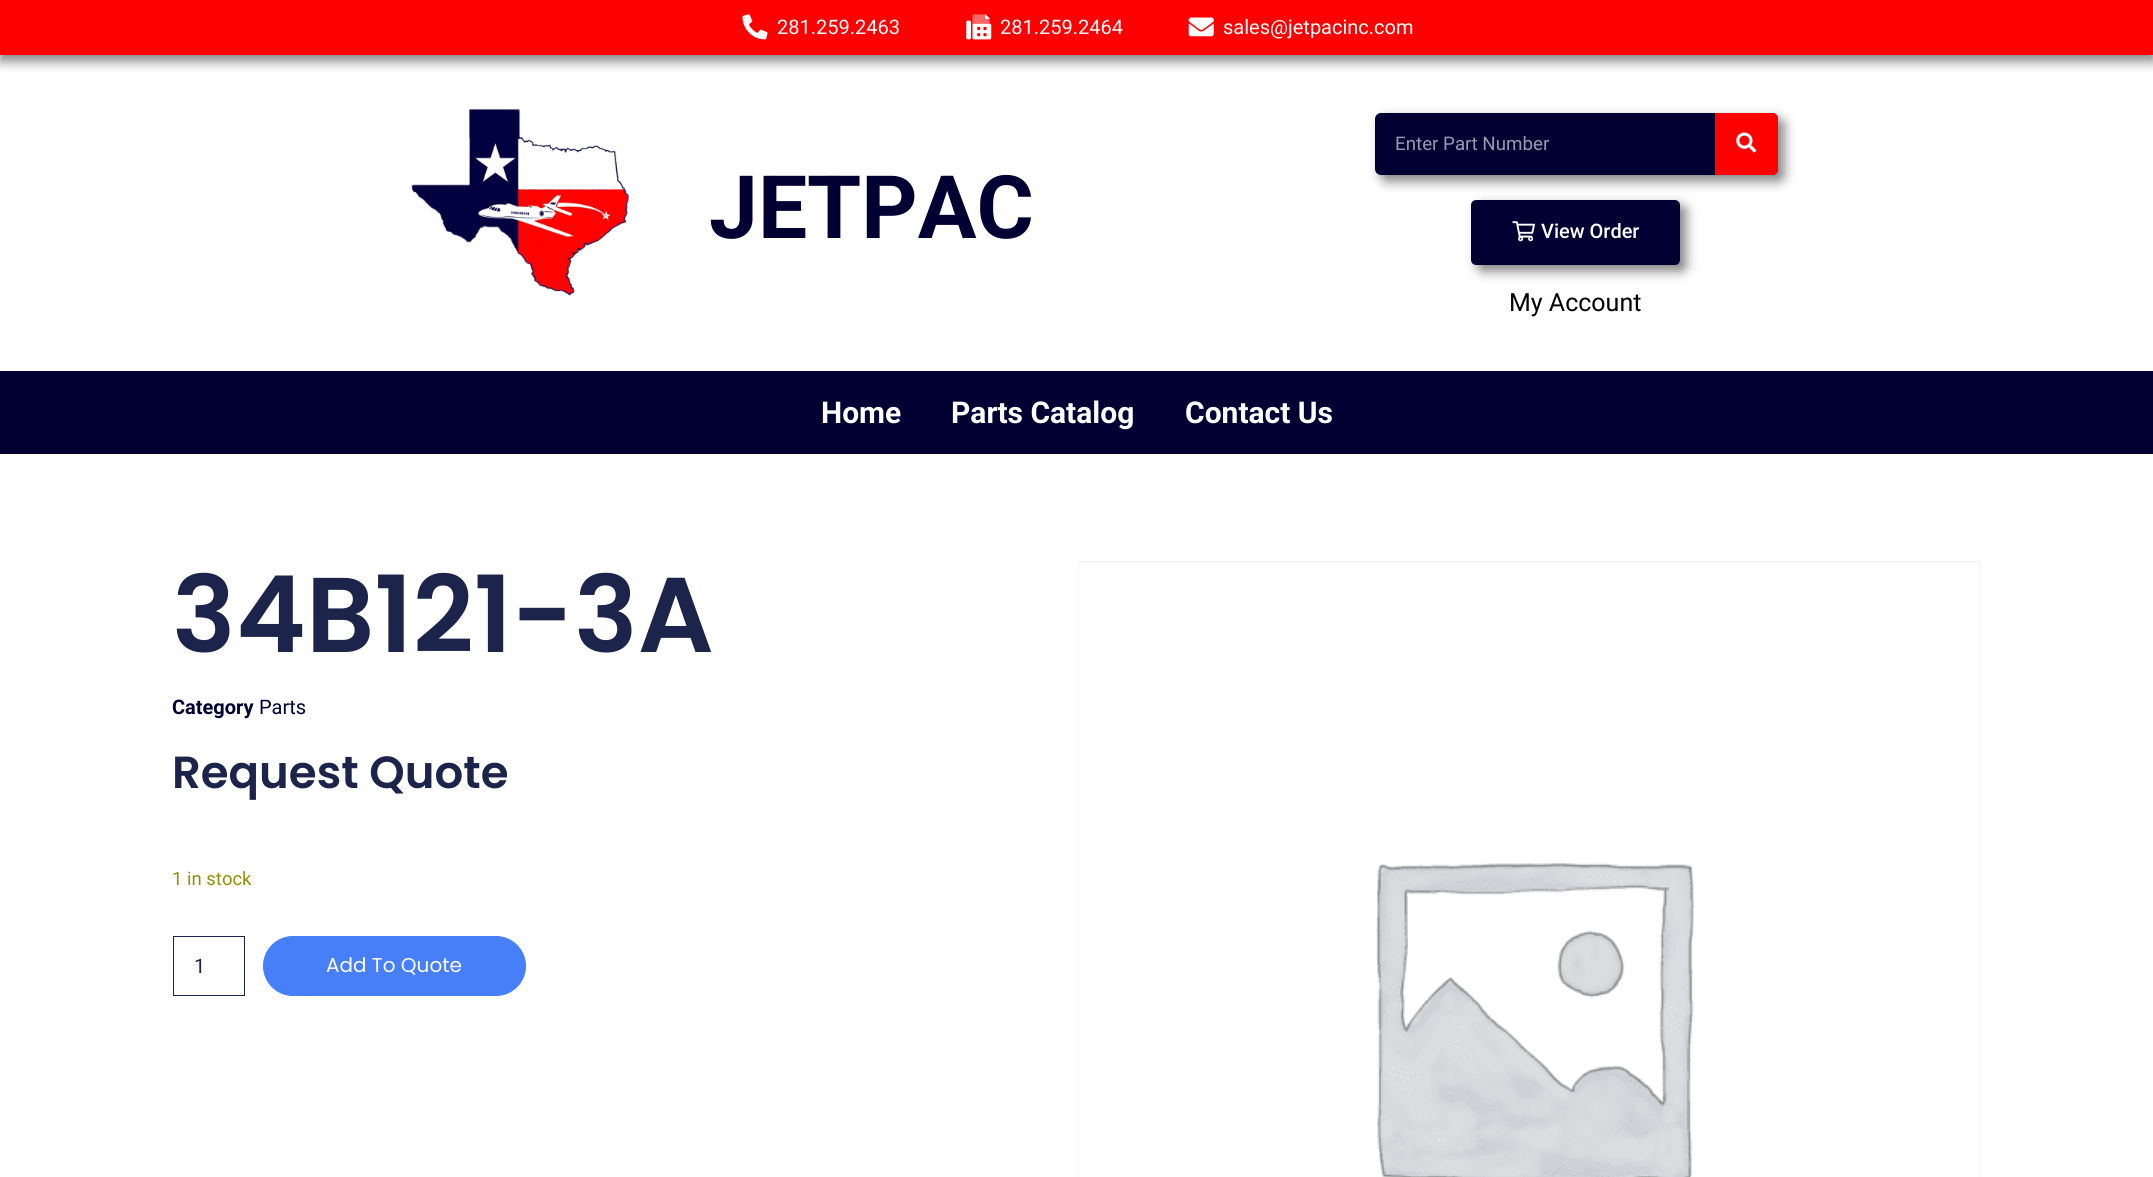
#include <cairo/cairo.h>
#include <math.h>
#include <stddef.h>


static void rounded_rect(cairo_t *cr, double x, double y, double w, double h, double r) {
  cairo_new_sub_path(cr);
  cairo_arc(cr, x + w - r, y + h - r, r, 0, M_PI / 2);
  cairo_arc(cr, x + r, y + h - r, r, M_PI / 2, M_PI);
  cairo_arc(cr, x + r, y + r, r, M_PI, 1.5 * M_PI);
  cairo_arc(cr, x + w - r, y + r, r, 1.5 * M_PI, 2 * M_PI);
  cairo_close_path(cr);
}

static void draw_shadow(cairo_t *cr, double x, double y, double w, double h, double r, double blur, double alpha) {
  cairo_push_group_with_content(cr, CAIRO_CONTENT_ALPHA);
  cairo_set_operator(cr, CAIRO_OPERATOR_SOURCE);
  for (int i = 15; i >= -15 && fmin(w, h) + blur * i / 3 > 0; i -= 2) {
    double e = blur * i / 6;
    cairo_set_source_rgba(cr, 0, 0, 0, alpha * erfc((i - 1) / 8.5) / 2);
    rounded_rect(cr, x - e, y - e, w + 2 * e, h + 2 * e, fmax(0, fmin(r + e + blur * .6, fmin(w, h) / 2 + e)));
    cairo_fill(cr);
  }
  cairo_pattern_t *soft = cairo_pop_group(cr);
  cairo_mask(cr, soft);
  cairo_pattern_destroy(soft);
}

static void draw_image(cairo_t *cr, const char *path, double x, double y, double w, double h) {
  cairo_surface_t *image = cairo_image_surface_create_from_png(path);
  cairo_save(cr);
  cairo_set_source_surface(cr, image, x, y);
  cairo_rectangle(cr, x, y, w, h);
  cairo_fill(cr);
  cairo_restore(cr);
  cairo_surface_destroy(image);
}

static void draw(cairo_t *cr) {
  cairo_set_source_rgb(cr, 1, 1, 1);
  cairo_paint(cr);
  cairo_set_source_rgb(cr, 0, 0, 0);
  draw_shadow(cr, 0, 6, 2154, 55, 0, 6, 0.5);
  cairo_set_source_rgb(cr, 1, 0, 0);
  cairo_rectangle(cr, 0, 0, 2153, 55);
  cairo_fill(cr);
  draw_image(cr, "images/1.png", 742, 14, 26, 26);
  draw_image(cr, "images/2.png", 966, 14, 26, 26);
  draw_image(cr, "images/3.png", 972, 14, 18, 10);
  draw_image(cr, "images/4.png", 1188, 17, 26, 20);
  draw_image(cr, "images/5.png", 411, 108, 218, 188);
  cairo_set_source_rgb(cr, 0, 0, 0);
  draw_shadow(cr, 1381, 119, 403, 62, 6, 6, 0.5);
  cairo_set_source_rgb(cr, 1 / 255.0, 0, 51 / 255.0);
  rounded_rect(cr, 1375, 113, 403, 62, 6);
  cairo_fill(cr);
  cairo_save(cr);
  rounded_rect(cr, 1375, 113, 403, 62, 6);
  cairo_clip(cr);
  cairo_set_source_rgb(cr, 0, 0, 0);
  draw_shadow(cr, 1721, 119, 63, 62, 0, 6, 0.5);
  cairo_restore(cr);
  cairo_set_source_rgb(cr, 1, 0, 0);
  cairo_new_path(cr);
  cairo_move_to(cr, 1715, 113);
  cairo_line_to(cr, 1772, 113);
  cairo_curve_to(cr, 1775.5, 113, 1778, 115.5, 1778, 119);
  cairo_line_to(cr, 1778, 169);
  cairo_curve_to(cr, 1778, 172.5, 1775.5, 175, 1772, 175);
  cairo_line_to(cr, 1715, 175);
  cairo_close_path(cr);
  cairo_fill(cr);
  draw_image(cr, "images/6.png", 1736, 132, 21, 21);
  cairo_set_source_rgb(cr, 0, 0, 0);
  draw_shadow(cr, 1478, 206, 208, 65, 5, 6, 0.5);
  cairo_set_source_rgb(cr, 1 / 255.0, 0, 51 / 255.0);
  rounded_rect(cr, 1473, 202, 205, 61, 3);
  cairo_fill_preserve(cr);
  cairo_set_line_width(cr, 4);
  cairo_stroke(cr);
  draw_image(cr, "images/7.png", 1512, 221, 23, 21);
  cairo_rectangle(cr, 0, 371, 2153, 83);
  cairo_fill(cr);
  cairo_rectangle(cr, 173.5, 936.5, 71, 59);
  cairo_set_source_rgb(cr, 28 / 255.0, 36 / 255.0, 75 / 255.0);
  cairo_set_line_width(cr, 1);
  cairo_stroke(cr);
  cairo_set_source_rgb(cr, 70 / 255.0, 127 / 255.0, 247 / 255.0);
  rounded_rect(cr, 263.5, 936.5, 262, 59, 29.5);
  cairo_fill_preserve(cr);
  cairo_stroke(cr);
  cairo_rectangle(cr, 1078.5, 561.5, 902, 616);
  cairo_set_source_rgb(cr, 242 / 255.0, 242 / 255.0, 242 / 255.0);
  cairo_stroke(cr);
  draw_image(cr, "images/8.png", 1376, 863, 319, 314);
  cairo_select_font_face(cr, "Roboto", CAIRO_FONT_SLANT_NORMAL, CAIRO_FONT_WEIGHT_NORMAL);
  cairo_set_font_size(cr, 20);
  cairo_set_source_rgb(cr, 1, 1, 1);
  cairo_move_to(cr, 777, 34);
  cairo_show_text(cr, "281.259.2463");
  cairo_move_to(cr, 1000, 34);
  cairo_show_text(cr, "281.259.2464");
  cairo_move_to(cr, 1223, 34);
  cairo_show_text(cr, "sales@jetpacinc.com");
  cairo_select_font_face(cr, "Roboto", CAIRO_FONT_SLANT_NORMAL, CAIRO_FONT_WEIGHT_BOLD);
  cairo_set_font_size(cr, 87.5);
  cairo_set_source_rgb(cr, 1 / 255.0, 0, 51 / 255.0);
  cairo_move_to(cr, 709, 238);
  cairo_show_text(cr, "JETPAC");
  cairo_select_font_face(cr, "Roboto", CAIRO_FONT_SLANT_NORMAL, CAIRO_FONT_WEIGHT_NORMAL);
  cairo_set_font_size(cr, 18.75);
  cairo_set_source_rgb(cr, 153 / 255.0, 153 / 255.0, 173 / 255.0);
  cairo_move_to(cr, 1395, 150);
  cairo_show_text(cr, "Enter Part Number");
  cairo_select_font_face(cr, "Roboto Medium", CAIRO_FONT_SLANT_NORMAL, CAIRO_FONT_WEIGHT_NORMAL);
  cairo_set_font_size(cr, 20);
  cairo_set_source_rgb(cr, 1, 1, 1);
  cairo_move_to(cr, 1541, 238);
  cairo_show_text(cr, "View Order");
  cairo_select_font_face(cr, "Roboto", CAIRO_FONT_SLANT_NORMAL, CAIRO_FONT_WEIGHT_NORMAL);
  cairo_set_font_size(cr, 25);
  cairo_set_source_rgb(cr, 0, 0, 0);
  cairo_move_to(cr, 1509, 311);
  cairo_show_text(cr, "My Account");
  cairo_select_font_face(cr, "Roboto", CAIRO_FONT_SLANT_NORMAL, CAIRO_FONT_WEIGHT_BOLD);
  cairo_set_font_size(cr, 30);
  cairo_set_source_rgb(cr, 1, 1, 1);
  cairo_move_to(cr, 821, 423);
  cairo_show_text(cr, "Home");
  cairo_move_to(cr, 951, 423);
  cairo_show_text(cr, "Parts Catalog");
  cairo_move_to(cr, 1185, 423);
  cairo_show_text(cr, "Contact Us");
  cairo_select_font_face(cr, "Poppins SemiBold", CAIRO_FONT_SLANT_NORMAL, CAIRO_FONT_WEIGHT_NORMAL);
  cairo_set_font_size(cr, 106.25);
  cairo_set_source_rgb(cr, 28 / 255.0, 36 / 255.0, 75 / 255.0);
  cairo_move_to(cr, 172, 652);
  cairo_show_text(cr, "34B121-3A");
  cairo_select_font_face(cr, "Roboto", CAIRO_FONT_SLANT_NORMAL, CAIRO_FONT_WEIGHT_BOLD);
  cairo_set_font_size(cr, 20);
  cairo_set_source_rgb(cr, 1 / 255.0, 0, 51 / 255.0);
  cairo_move_to(cr, 172, 714);
  cairo_show_text(cr, "Category");
  cairo_select_font_face(cr, "Roboto", CAIRO_FONT_SLANT_NORMAL, CAIRO_FONT_WEIGHT_NORMAL);
  cairo_move_to(cr, 259, 714);
  cairo_show_text(cr, "Parts");
  cairo_select_font_face(cr, "Poppins SemiBold", CAIRO_FONT_SLANT_NORMAL, CAIRO_FONT_WEIGHT_NORMAL);
  cairo_set_font_size(cr, 45);
  cairo_set_source_rgb(cr, 28 / 255.0, 36 / 255.0, 75 / 255.0);
  cairo_move_to(cr, 172, 788);
  cairo_show_text(cr, "Request Quote");
  cairo_select_font_face(cr, "Roboto", CAIRO_FONT_SLANT_NORMAL, CAIRO_FONT_WEIGHT_NORMAL);
  cairo_set_font_size(cr, 18.5);
  cairo_set_source_rgb(cr, 149 / 255.0, 142 / 255.0, 9 / 255.0);
  cairo_move_to(cr, 172, 885);
  cairo_show_text(cr, "1 in stock");
  cairo_set_font_size(cr, 20);
  cairo_set_source_rgb(cr, 28 / 255.0, 36 / 255.0, 75 / 255.0);
  cairo_move_to(cr, 194, 973);
  cairo_show_text(cr, "1");
  cairo_select_font_face(cr, "Poppins", CAIRO_FONT_SLANT_NORMAL, CAIRO_FONT_WEIGHT_NORMAL);
  cairo_set_source_rgb(cr, 1, 1, 1);
  cairo_move_to(cr, 326, 972);
  cairo_show_text(cr, "Add To Quote");
}

int main(void) {
  cairo_surface_t *surface = cairo_image_surface_create(CAIRO_FORMAT_RGB24, 2153, 1177);
  cairo_t *cr = cairo_create(surface);
  cairo_font_options_t *options = cairo_font_options_create();
  cairo_font_options_set_hint_metrics(options, CAIRO_HINT_METRICS_OFF);
  cairo_font_options_set_hint_style(options, CAIRO_HINT_STYLE_NONE);
  cairo_set_font_options(cr, options);
  cairo_set_miter_limit(cr, 4);
  draw(cr);
  cairo_surface_write_to_png(surface, "out.png");
  cairo_font_options_destroy(options);
  cairo_destroy(cr);
  cairo_surface_destroy(surface);
  return 0;
}
